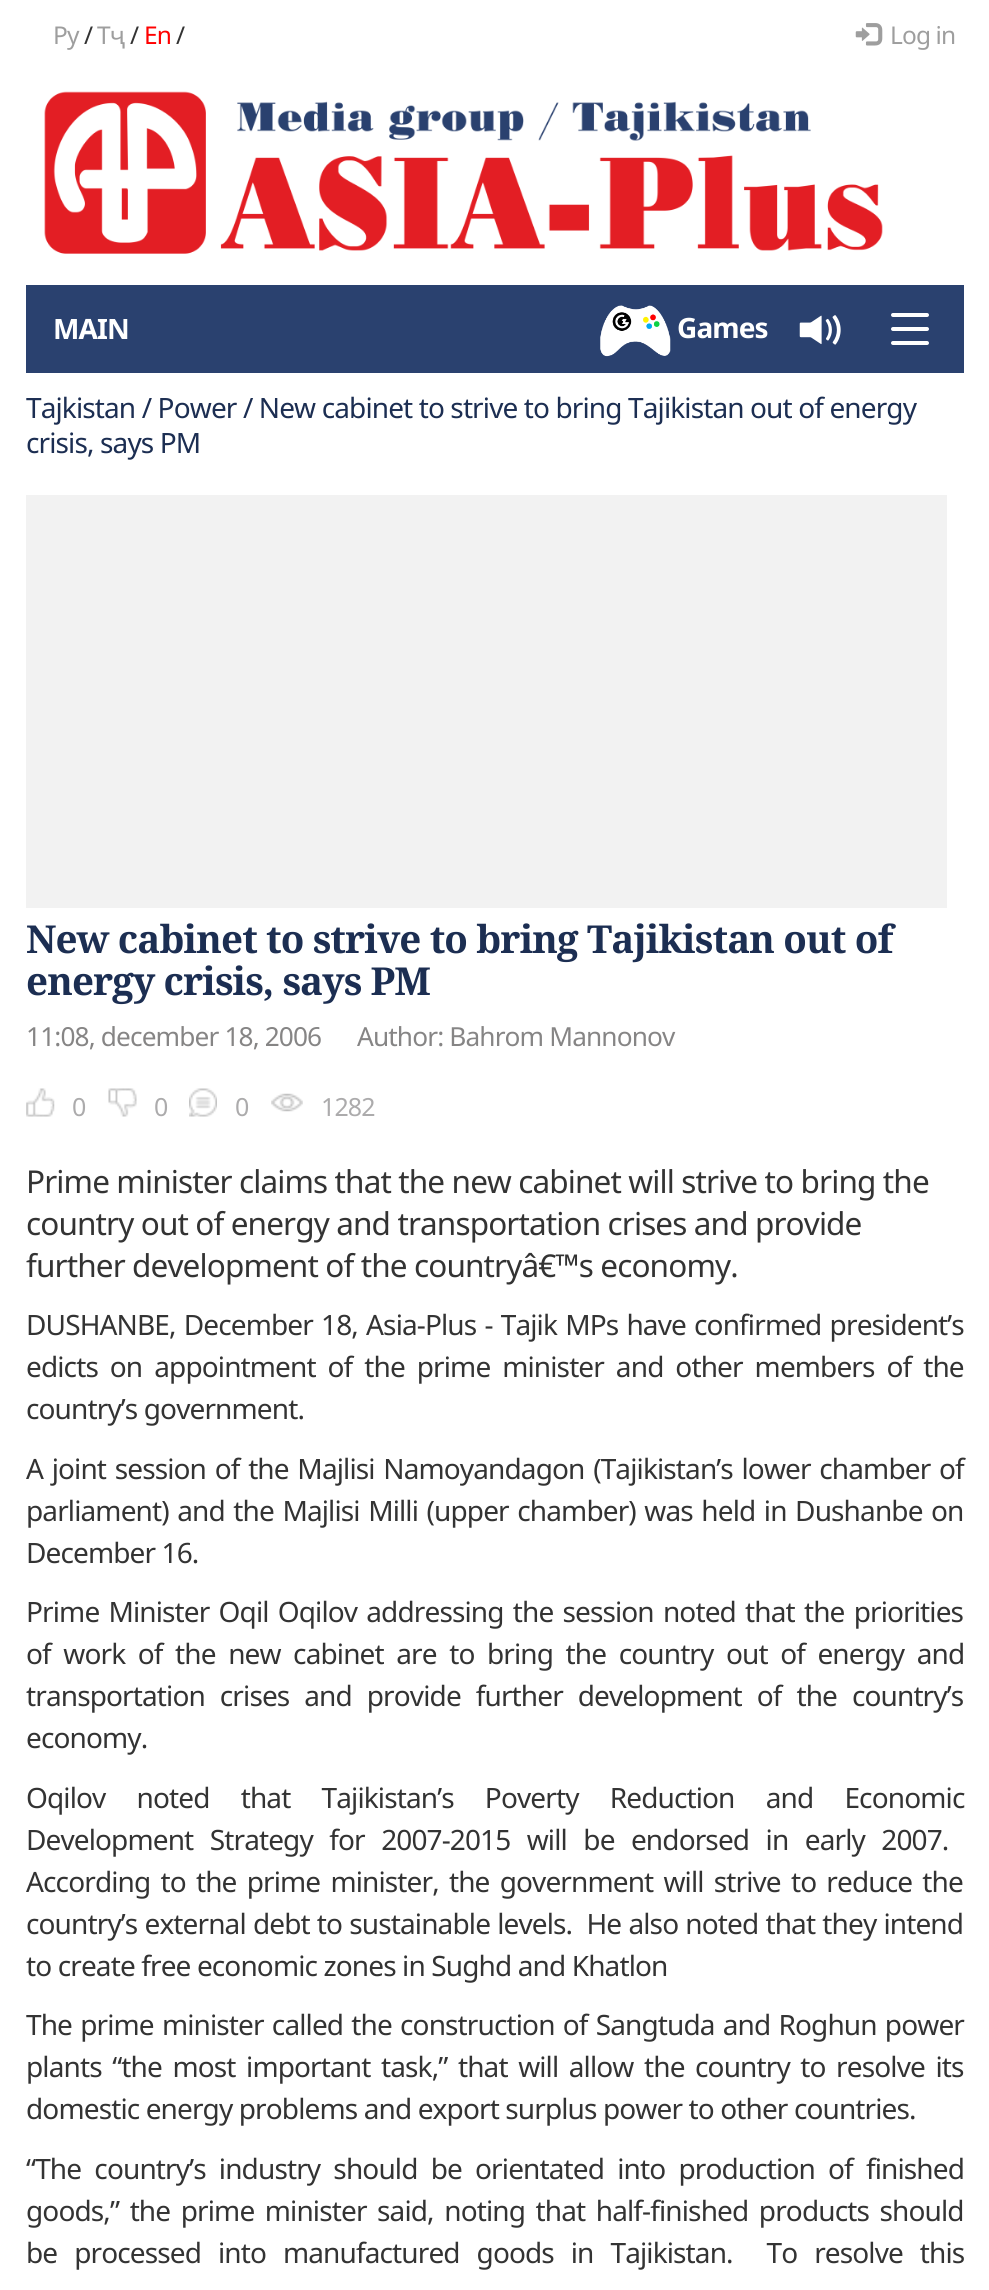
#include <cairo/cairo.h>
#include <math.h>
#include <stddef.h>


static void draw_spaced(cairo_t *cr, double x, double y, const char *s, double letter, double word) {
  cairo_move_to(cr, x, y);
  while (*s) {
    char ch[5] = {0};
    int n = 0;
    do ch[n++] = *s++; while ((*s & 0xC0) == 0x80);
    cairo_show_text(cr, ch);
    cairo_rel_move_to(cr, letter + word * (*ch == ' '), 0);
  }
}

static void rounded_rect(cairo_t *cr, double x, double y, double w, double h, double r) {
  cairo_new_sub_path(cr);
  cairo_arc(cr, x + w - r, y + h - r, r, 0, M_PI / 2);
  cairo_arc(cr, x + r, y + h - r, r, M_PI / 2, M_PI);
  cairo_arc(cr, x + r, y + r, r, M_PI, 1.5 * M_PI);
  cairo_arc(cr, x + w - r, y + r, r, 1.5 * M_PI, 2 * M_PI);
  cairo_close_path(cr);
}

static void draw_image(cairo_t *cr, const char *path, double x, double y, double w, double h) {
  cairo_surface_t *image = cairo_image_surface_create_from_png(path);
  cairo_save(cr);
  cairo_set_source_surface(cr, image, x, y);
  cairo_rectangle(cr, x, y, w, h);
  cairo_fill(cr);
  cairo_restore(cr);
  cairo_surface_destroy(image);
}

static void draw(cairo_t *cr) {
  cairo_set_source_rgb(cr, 1, 1, 1);
  cairo_paint(cr);
  draw_image(cr, "images/1.png", 855, 23, 28, 23);
  draw_image(cr, "images/2.png", 44, 91, 839, 163);
  cairo_set_source_rgb(cr, 42 / 255.0, 65 / 255.0, 111 / 255.0);
  cairo_rectangle(cr, 26, 285, 938, 88);
  cairo_fill(cr);
  draw_image(cr, "images/3.png", 600, 305, 71, 52);
  draw_image(cr, "images/4.png", 799, 315, 42, 30);
  cairo_set_source_rgb(cr, 1, 1, 1);
  rounded_rect(cr, 891, 313, 38, 4, 2);
  cairo_fill(cr);
  rounded_rect(cr, 891, 327, 38, 4, 2);
  cairo_fill(cr);
  rounded_rect(cr, 891, 341, 38, 4, 2);
  cairo_fill(cr);
  cairo_set_source_rgb(cr, 242 / 255.0, 242 / 255.0, 242 / 255.0);
  cairo_rectangle(cr, 26, 495, 921, 413);
  cairo_fill(cr);
  draw_image(cr, "images/5.png", 26, 1088, 29, 29);
  draw_image(cr, "images/6.png", 108, 1088, 29, 29);
  draw_image(cr, "images/7.png", 189, 1088, 28, 29);
  draw_image(cr, "images/8.png", 271, 1093, 32, 19);
  cairo_select_font_face(cr, "Noto Sans", CAIRO_FONT_SLANT_NORMAL, CAIRO_FONT_WEIGHT_NORMAL);
  cairo_set_font_size(cr, 24.5);
  cairo_set_source_rgb(cr, 158 / 255.0, 158 / 255.0, 158 / 255.0);
  draw_spaced(cr, 53, 44, "Ру", -0.88, 0);
  cairo_set_source_rgb(cr, 51 / 255.0, 51 / 255.0, 51 / 255.0);
  draw_spaced(cr, 84, 44, "/", -0.88, 0);
  cairo_set_source_rgb(cr, 158 / 255.0, 158 / 255.0, 158 / 255.0);
  draw_spaced(cr, 97, 44, "Тҷ", -0.88, 0);
  cairo_set_source_rgb(cr, 51 / 255.0, 51 / 255.0, 51 / 255.0);
  draw_spaced(cr, 130, 44, "/", -0.88, 0);
  cairo_set_source_rgb(cr, 1, 0, 0);
  draw_spaced(cr, 144, 44, "En", -0.88, 0);
  cairo_set_source_rgb(cr, 51 / 255.0, 51 / 255.0, 51 / 255.0);
  draw_spaced(cr, 176, 44, "/", -0.88, 0);
  cairo_set_source_rgb(cr, 158 / 255.0, 158 / 255.0, 158 / 255.0);
  draw_spaced(cr, 890, 44, "Log in", -0.88, 0);
  cairo_select_font_face(cr, "Noto Sans", CAIRO_FONT_SLANT_NORMAL, CAIRO_FONT_WEIGHT_BOLD);
  cairo_set_font_size(cr, 28);
  cairo_set_source_rgb(cr, 1, 1, 1);
  draw_spaced(cr, 53, 339, "MAIN", -0.88, 0);
  draw_spaced(cr, 677, 338, "Games", -0.88, 0);
  cairo_select_font_face(cr, "Noto Sans", CAIRO_FONT_SLANT_NORMAL, CAIRO_FONT_WEIGHT_NORMAL);
  cairo_set_source_rgb(cr, 28 / 255.0, 46 / 255.0, 82 / 255.0);
  draw_spaced(cr, 26, 418, "Tajkistan / Power / New cabinet to strive to bring Tajikistan out of energy", -0.88, 0);
  draw_spaced(cr, 26, 453, "crisis, says PM", -0.88, 0);
  cairo_select_font_face(cr, "Noto Serif", CAIRO_FONT_SLANT_NORMAL, CAIRO_FONT_WEIGHT_BOLD);
  cairo_set_font_size(cr, 38.5);
  draw_spaced(cr, 26, 953, "New cabinet to strive to bring Tajikistan out of", -0.88, 0);
  draw_spaced(cr, 26, 995, "energy crisis, says PM", -0.88, 0);
  cairo_select_font_face(cr, "Noto Sans", CAIRO_FONT_SLANT_NORMAL, CAIRO_FONT_WEIGHT_NORMAL);
  cairo_set_font_size(cr, 26.25);
  cairo_set_source_rgb(cr, 134 / 255.0, 133 / 255.0, 133 / 255.0);
  draw_spaced(cr, 26, 1046, "11:08, december 18, 2006", -0.88, 0);
  draw_spaced(cr, 357, 1046, "Author: Bahrom Mannonov", -0.88, 0);
  cairo_set_font_size(cr, 25);
  cairo_set_source_rgb(cr, 172 / 255.0, 171 / 255.0, 172 / 255.0);
  draw_spaced(cr, 72, 1116, "0", -0.88, 0);
  draw_spaced(cr, 154, 1116, "0", -0.88, 0);
  draw_spaced(cr, 235, 1116, "0", -0.88, 0);
  draw_spaced(cr, 321, 1116, "1282", -0.88, 0);
  cairo_set_font_size(cr, 31.5);
  cairo_set_source_rgb(cr, 51 / 255.0, 51 / 255.0, 51 / 255.0);
  draw_spaced(cr, 26, 1193, "Prime minister claims that the new cabinet will strive to bring the", -0.88, 0);
  draw_spaced(cr, 26, 1235, "country out of energy and transportation crises and provide", -0.88, 0);
  draw_spaced(cr, 26, 1277, "further development of the countryâ€™s economy.", -0.88, 0);
  cairo_set_font_size(cr, 28);
  draw_spaced(cr, 26, 1335, "DUSHANBE, December 18, Asia-Plus - Tajik MPs have confirmed president’s", -0.88, 1.75);
  draw_spaced(cr, 26, 1377, "edicts on appointment of the prime minister and other members of the", -0.88, 5.5);
  draw_spaced(cr, 26, 1419, "country’s government.", -0.88, 0);
  draw_spaced(cr, 26, 1479, "A joint session of the Majlisi Namoyandagon (Tajikistan’s lower chamber of", -0.88, 2.25);
  draw_spaced(cr, 26, 1521, "parliament) and the Majlisi Milli (upper chamber) was held in Dushanbe on", -0.88, 2.1);
  draw_spaced(cr, 26, 1563, "December 16.", -0.88, 0);
  draw_spaced(cr, 26, 1622, "Prime Minister Oqil Oqilov addressing the session noted that the priorities", -0.88, 2.75);
  draw_spaced(cr, 26, 1664, "of work of the new cabinet are to bring the country out of energy and", -0.88, 6.1);
  draw_spaced(cr, 26, 1706, "transportation crises and provide further development of the country’s", -0.88, 8.5);
  draw_spaced(cr, 26, 1748, "economy.", -0.88, 0);
  draw_spaced(cr, 26, 1808, "Oqilov noted that Tajikistan’s Poverty Reduction and Economic", -0.88, 24.75);
  draw_spaced(cr, 26, 1850, "Development Strategy for 2007-2015 will be endorsed in early 2007.", -0.88, 10);
  draw_spaced(cr, 26, 1892, "According to the prime minister, the government will strive to reduce the", -0.88, 3.75);
  draw_spaced(cr, 26, 1934, "country’s external debt to sustainable levels.  He also noted that they intend", -0.88, 0.75);
  draw_spaced(cr, 26, 1976, "to create free economic zones in Sughd and Khatlon", -0.88, 0);
  draw_spaced(cr, 26, 2035, "The prime minister called the construction of Sangtuda and Roghun power", -0.88, 1.75);
  draw_spaced(cr, 26, 2077, "plants “the most important task,” that will allow the country to resolve its", -0.88, 4.1);
  draw_spaced(cr, 26, 2119, "domestic energy problems and export surplus power to other countries.", -0.88, 0);
  draw_spaced(cr, 26, 2179, "“The country’s industry should be orientated into production of finished", -0.88, 6.75);
  draw_spaced(cr, 26, 2221, "goods,” the prime minister said, noting that half-finished products should", -0.88, 4.1);
  draw_spaced(cr, 26, 2263, "be processed into manufactured goods in Tajikistan.  To resolve this", -0.88, 10.5);
}

int main(void) {
  cairo_surface_t *surface = cairo_image_surface_create(CAIRO_FORMAT_RGB24, 989, 2290);
  cairo_t *cr = cairo_create(surface);
  cairo_font_options_t *options = cairo_font_options_create();
  cairo_font_options_set_hint_metrics(options, CAIRO_HINT_METRICS_OFF);
  cairo_font_options_set_hint_style(options, CAIRO_HINT_STYLE_NONE);
  cairo_set_font_options(cr, options);
  cairo_set_miter_limit(cr, 4);
  draw(cr);
  cairo_surface_write_to_png(surface, "out.png");
  cairo_font_options_destroy(options);
  cairo_destroy(cr);
  cairo_surface_destroy(surface);
  return 0;
}
